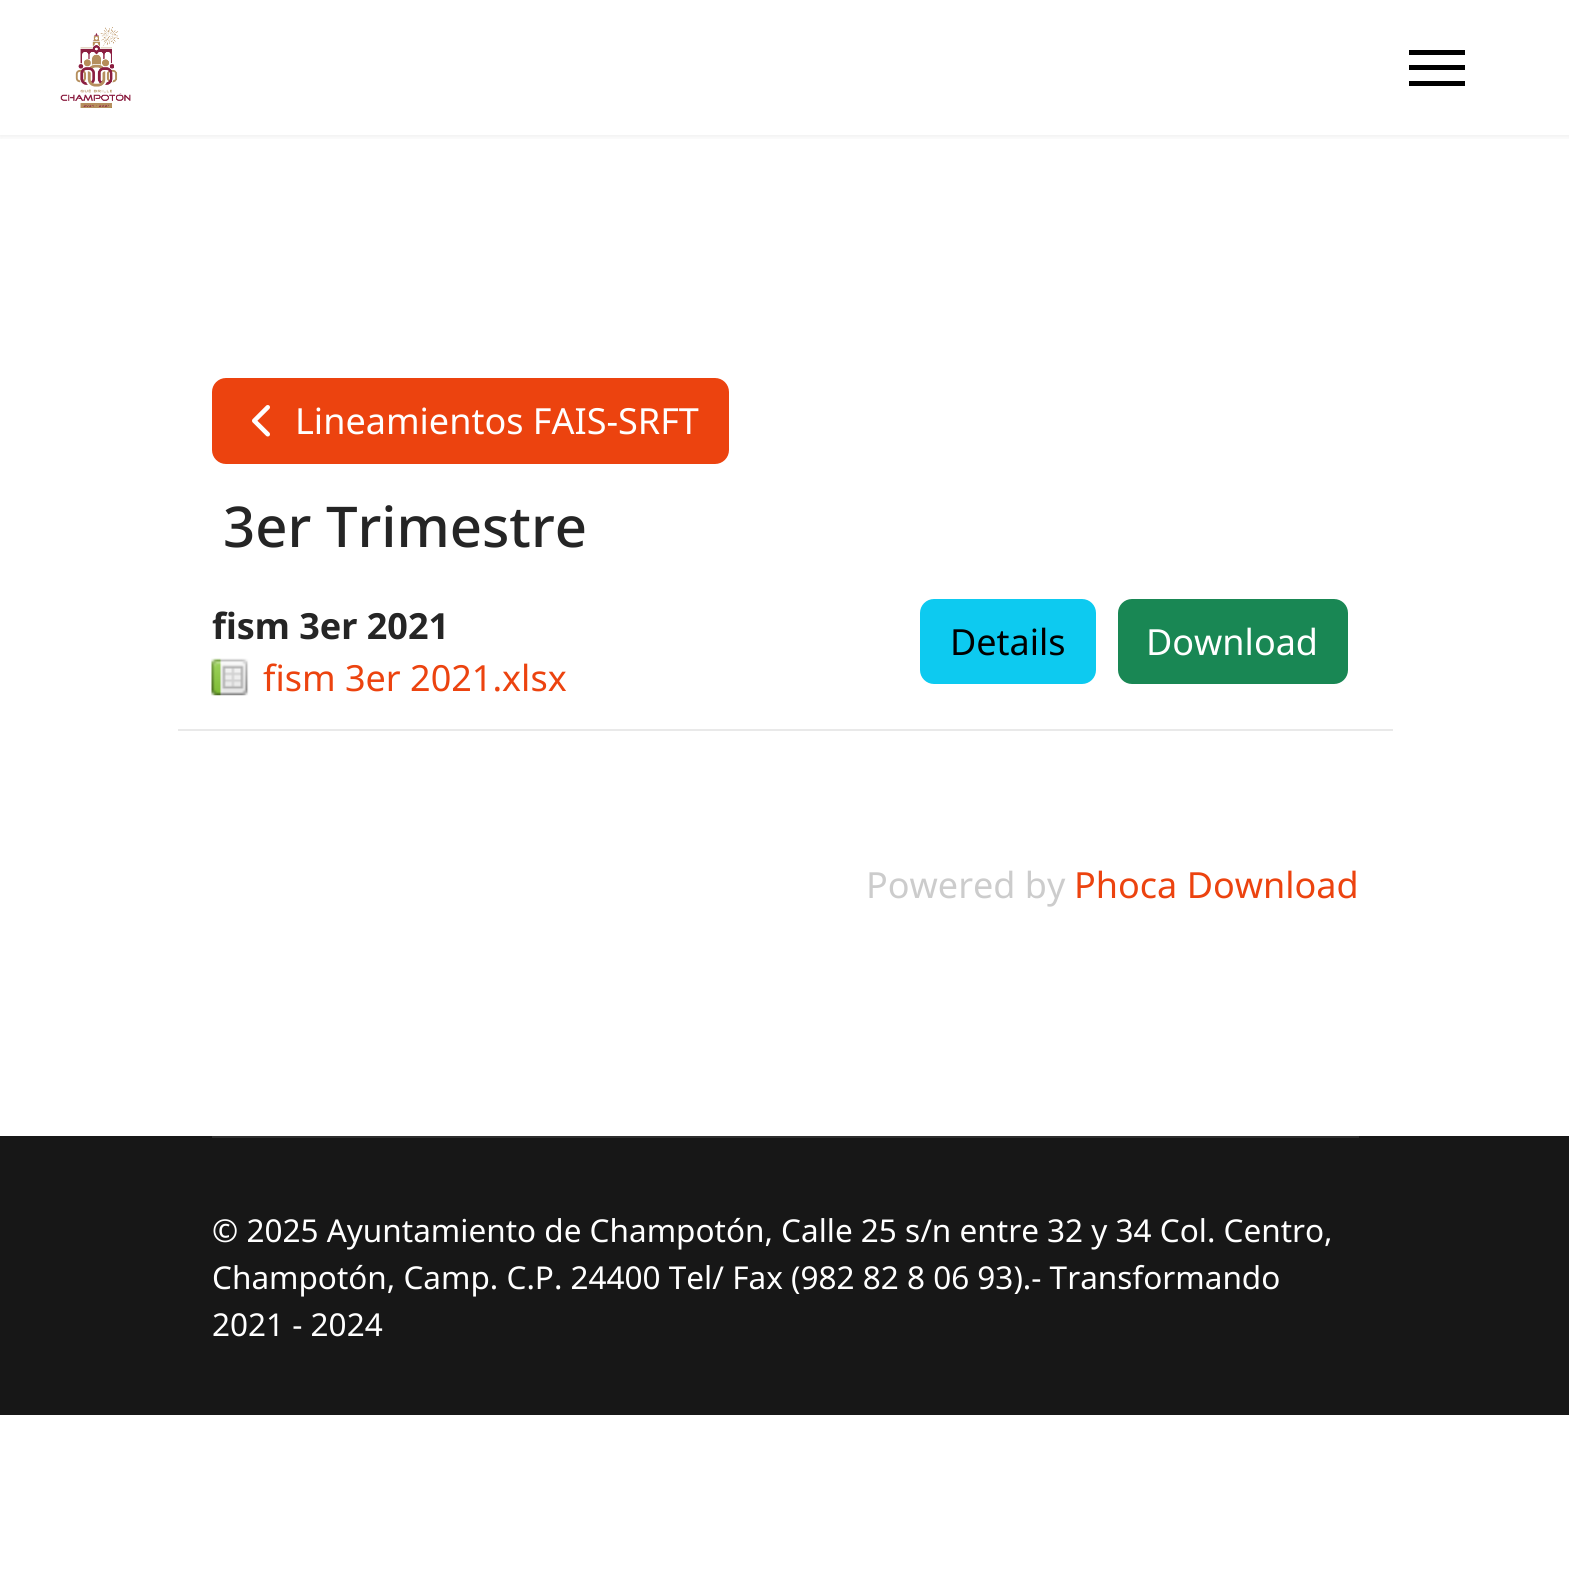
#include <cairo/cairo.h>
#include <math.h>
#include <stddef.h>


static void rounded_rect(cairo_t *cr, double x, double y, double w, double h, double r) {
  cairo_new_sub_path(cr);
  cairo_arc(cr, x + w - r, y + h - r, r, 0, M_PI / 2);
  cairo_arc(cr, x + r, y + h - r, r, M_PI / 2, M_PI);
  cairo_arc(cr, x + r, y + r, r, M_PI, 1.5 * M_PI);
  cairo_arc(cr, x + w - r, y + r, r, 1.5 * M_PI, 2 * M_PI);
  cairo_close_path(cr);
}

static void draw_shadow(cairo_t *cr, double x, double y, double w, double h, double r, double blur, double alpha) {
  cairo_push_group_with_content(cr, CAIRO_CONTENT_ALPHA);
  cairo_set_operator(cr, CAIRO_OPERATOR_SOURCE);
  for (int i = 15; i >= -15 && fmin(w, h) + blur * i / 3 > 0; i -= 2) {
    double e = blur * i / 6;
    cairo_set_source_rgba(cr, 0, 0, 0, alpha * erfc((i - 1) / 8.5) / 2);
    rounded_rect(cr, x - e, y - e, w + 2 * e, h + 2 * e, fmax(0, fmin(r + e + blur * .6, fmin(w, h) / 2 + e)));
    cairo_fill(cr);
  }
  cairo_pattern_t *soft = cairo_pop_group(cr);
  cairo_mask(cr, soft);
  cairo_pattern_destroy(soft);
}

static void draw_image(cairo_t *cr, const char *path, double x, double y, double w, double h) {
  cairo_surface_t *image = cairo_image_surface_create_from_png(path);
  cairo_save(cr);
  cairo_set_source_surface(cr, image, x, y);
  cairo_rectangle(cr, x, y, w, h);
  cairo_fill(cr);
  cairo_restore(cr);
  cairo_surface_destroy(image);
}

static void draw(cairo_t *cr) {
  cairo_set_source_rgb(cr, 1, 1, 1);
  cairo_paint(cr);
  cairo_save(cr);
  cairo_rectangle(cr, 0, 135, 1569, 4);
  cairo_clip(cr);
  cairo_set_source_rgb(cr, 0, 0, 0);
  draw_shadow(cr, 0, 0, 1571, 135, 0, 4.5, 0.1);
  cairo_restore(cr);
  draw_image(cr, "images/1.png", 60, 27, 71, 81);
  cairo_set_source_rgb(cr, 0, 0, 0);
  cairo_rectangle(cr, 1409, 50, 56, 5);
  cairo_fill(cr);
  cairo_rectangle(cr, 1409, 65, 56, 5);
  cairo_fill(cr);
  cairo_rectangle(cr, 1409, 81, 56, 5);
  cairo_fill(cr);
  cairo_set_source_rgb(cr, 236 / 255.0, 67 / 255.0, 15 / 255.0);
  rounded_rect(cr, 213, 379, 515, 84, 13);
  cairo_fill_preserve(cr);
  cairo_stroke(cr);
  draw_image(cr, "images/2.png", 252, 405, 18, 32);
  draw_image(cr, "images/3.png", 211, 658, 38, 38);
  cairo_set_source_rgb(cr, 13 / 255.0, 202 / 255.0, 240 / 255.0);
  rounded_rect(cr, 921, 600, 174, 83, 13);
  cairo_fill_preserve(cr);
  cairo_stroke(cr);
  cairo_set_source_rgb(cr, 25 / 255.0, 135 / 255.0, 84 / 255.0);
  rounded_rect(cr, 1119, 600, 228, 83, 13);
  cairo_fill_preserve(cr);
  cairo_stroke(cr);
  cairo_set_source_rgb(cr, 233 / 255.0, 233 / 255.0, 233 / 255.0);
  cairo_rectangle(cr, 178, 729, 1215, 2);
  cairo_fill(cr);
  cairo_set_source_rgb(cr, 23 / 255.0, 23 / 255.0, 23 / 255.0);
  cairo_rectangle(cr, 0, 1136, 1569, 279);
  cairo_fill(cr);
  cairo_set_source_rgb(cr, 46 / 255.0, 46 / 255.0, 46 / 255.0);
  cairo_rectangle(cr, 212, 1136, 1147, 2);
  cairo_fill(cr);
  cairo_select_font_face(cr, "Noto Sans", CAIRO_FONT_SLANT_NORMAL, CAIRO_FONT_WEIGHT_NORMAL);
  cairo_set_font_size(cr, 36);
  cairo_set_source_rgb(cr, 1, 1, 1);
  cairo_move_to(cr, 295, 434);
  cairo_show_text(cr, "Lineamientos FAIS-SRFT");
  cairo_select_font_face(cr, "Noto Sans Medium", CAIRO_FONT_SLANT_NORMAL, CAIRO_FONT_WEIGHT_NORMAL);
  cairo_set_font_size(cr, 56.25);
  cairo_set_source_rgb(cr, 37 / 255.0, 37 / 255.0, 37 / 255.0);
  cairo_move_to(cr, 223, 547);
  cairo_show_text(cr, "3er Trimestre");
  cairo_select_font_face(cr, "Noto Sans", CAIRO_FONT_SLANT_NORMAL, CAIRO_FONT_WEIGHT_BOLD);
  cairo_set_font_size(cr, 36);
  cairo_move_to(cr, 212, 639);
  cairo_show_text(cr, "fism 3er 2021");
  cairo_select_font_face(cr, "Noto Sans", CAIRO_FONT_SLANT_NORMAL, CAIRO_FONT_WEIGHT_NORMAL);
  cairo_set_source_rgb(cr, 236 / 255.0, 67 / 255.0, 15 / 255.0);
  cairo_move_to(cr, 263, 691);
  cairo_show_text(cr, "fism 3er 2021.xlsx");
  cairo_set_source_rgb(cr, 0, 0, 0);
  cairo_move_to(cr, 950, 655);
  cairo_show_text(cr, "Details");
  cairo_set_source_rgb(cr, 1, 1, 1);
  cairo_move_to(cr, 1146, 655);
  cairo_show_text(cr, "Download");
  cairo_set_source_rgb(cr, 204 / 255.0, 204 / 255.0, 204 / 255.0);
  cairo_move_to(cr, 866, 898);
  cairo_show_text(cr, "Powered by");
  cairo_set_source_rgb(cr, 236 / 255.0, 67 / 255.0, 15 / 255.0);
  cairo_move_to(cr, 1074, 898);
  cairo_show_text(cr, "Phoca Download");
  cairo_set_font_size(cr, 31.5);
  cairo_set_source_rgb(cr, 1, 1, 1);
  cairo_move_to(cr, 212, 1242);
  cairo_show_text(cr, "© 2025 Ayuntamiento de Champotón, Calle 25 s/n entre 32 y 34 Col. Centro,");
  cairo_move_to(cr, 212, 1289);
  cairo_show_text(cr, "Champotón, Camp. C.P. 24400 Tel/ Fax (982 82 8 06 93).- Transformando");
  cairo_move_to(cr, 212, 1336);
  cairo_show_text(cr, "2021 - 2024");
}

int main(void) {
  cairo_surface_t *surface = cairo_image_surface_create(CAIRO_FORMAT_RGB24, 1569, 1587);
  cairo_t *cr = cairo_create(surface);
  cairo_font_options_t *options = cairo_font_options_create();
  cairo_font_options_set_hint_metrics(options, CAIRO_HINT_METRICS_OFF);
  cairo_font_options_set_hint_style(options, CAIRO_HINT_STYLE_NONE);
  cairo_set_font_options(cr, options);
  cairo_set_miter_limit(cr, 4);
  draw(cr);
  cairo_surface_write_to_png(surface, "out.png");
  cairo_font_options_destroy(options);
  cairo_destroy(cr);
  cairo_surface_destroy(surface);
  return 0;
}
